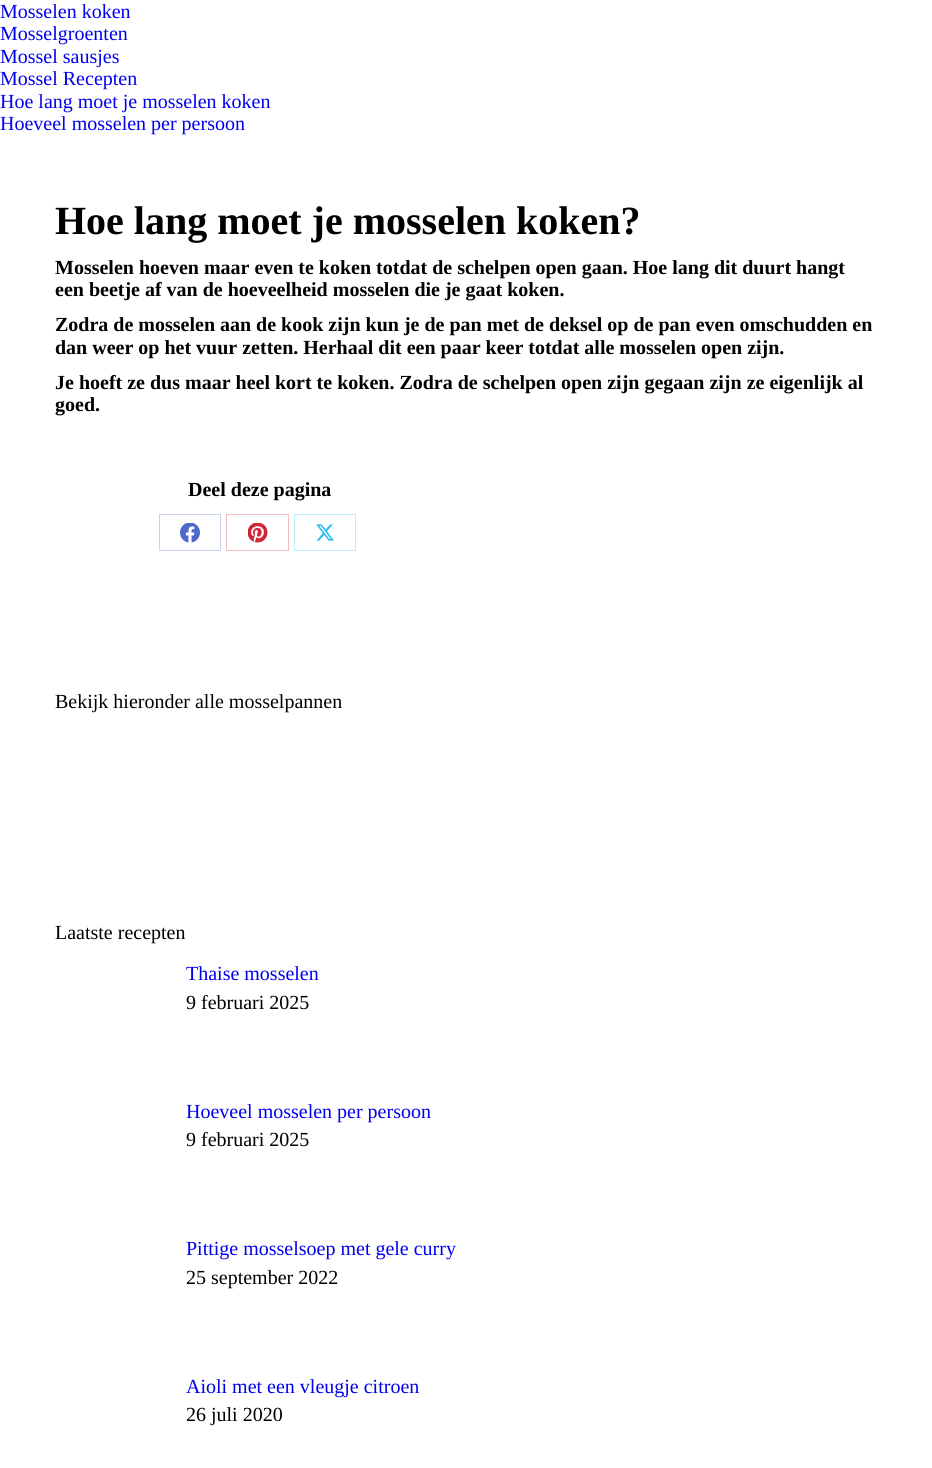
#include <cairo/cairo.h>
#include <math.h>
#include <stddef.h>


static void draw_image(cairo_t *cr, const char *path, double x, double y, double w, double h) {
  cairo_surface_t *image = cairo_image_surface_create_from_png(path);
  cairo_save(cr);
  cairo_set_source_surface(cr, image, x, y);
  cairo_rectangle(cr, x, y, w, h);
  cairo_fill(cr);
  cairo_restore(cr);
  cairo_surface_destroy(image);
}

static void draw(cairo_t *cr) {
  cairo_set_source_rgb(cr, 1, 1, 1);
  cairo_paint(cr);
  cairo_rectangle(cr, 159.5, 514.5, 61, 36);
  cairo_set_source_rgb(cr, 201 / 255.0, 210 / 255.0, 238 / 255.0);
  cairo_set_line_width(cr, 1);
  cairo_stroke(cr);
  draw_image(cr, "images/1.png", 180, 523, 20, 20);
  cairo_rectangle(cr, 226.5, 514.5, 62, 36);
  cairo_set_source_rgb(cr, 241 / 255.0, 191 / 255.0, 194 / 255.0);
  cairo_stroke(cr);
  draw_image(cr, "images/2.png", 248, 523, 20, 20);
  cairo_rectangle(cr, 294.5, 514.5, 61, 36);
  cairo_set_source_rgb(cr, 191 / 255.0, 236 / 255.0, 249 / 255.0);
  cairo_stroke(cr);
  draw_image(cr, "images/3.png", 316, 524, 18, 17);
  cairo_select_font_face(cr, "Liberation Serif", CAIRO_FONT_SLANT_NORMAL, CAIRO_FONT_WEIGHT_NORMAL);
  cairo_set_font_size(cr, 20);
  cairo_set_source_rgb(cr, 0, 0, 238 / 255.0);
  cairo_move_to(cr, 0, 18);
  cairo_show_text(cr, "Mosselen koken");
  cairo_move_to(cr, 0, 40);
  cairo_show_text(cr, "Mosselgroenten");
  cairo_move_to(cr, 0, 63);
  cairo_show_text(cr, "Mossel sausjes");
  cairo_move_to(cr, 0, 85);
  cairo_show_text(cr, "Mossel Recepten");
  cairo_move_to(cr, 0, 108);
  cairo_show_text(cr, "Hoe lang moet je mosselen koken");
  cairo_move_to(cr, 0, 130);
  cairo_show_text(cr, "Hoeveel mosselen per persoon");
  cairo_select_font_face(cr, "Liberation Serif", CAIRO_FONT_SLANT_NORMAL, CAIRO_FONT_WEIGHT_BOLD);
  cairo_set_font_size(cr, 40);
  cairo_set_source_rgb(cr, 0, 0, 0);
  cairo_move_to(cr, 55, 234);
  cairo_show_text(cr, "Hoe lang moet je mosselen koken?");
  cairo_set_font_size(cr, 20);
  cairo_move_to(cr, 55, 274);
  cairo_show_text(cr, "Mosselen hoeven maar even te koken totdat de schelpen open gaan. Hoe lang dit duurt hangt");
  cairo_move_to(cr, 55, 296);
  cairo_show_text(cr, "een beetje af van de hoeveelheid mosselen die je gaat koken.");
  cairo_move_to(cr, 55, 331);
  cairo_show_text(cr, "Zodra de mosselen aan de kook zijn kun je de pan met de deksel op de pan even omschudden en");
  cairo_move_to(cr, 55, 354);
  cairo_show_text(cr, "dan weer op het vuur zetten. Herhaal dit een paar keer totdat alle mosselen open zijn.");
  cairo_move_to(cr, 55, 389);
  cairo_show_text(cr, "Je hoeft ze dus maar heel kort te koken. Zodra de schelpen open zijn gegaan zijn ze eigenlijk al");
  cairo_move_to(cr, 55, 411);
  cairo_show_text(cr, "goed.");
  cairo_move_to(cr, 188, 496);
  cairo_show_text(cr, "Deel deze pagina");
  cairo_select_font_face(cr, "Liberation Serif", CAIRO_FONT_SLANT_NORMAL, CAIRO_FONT_WEIGHT_NORMAL);
  cairo_move_to(cr, 55, 708);
  cairo_show_text(cr, "Bekijk hieronder alle mosselpannen");
  cairo_move_to(cr, 55, 939);
  cairo_show_text(cr, "Laatste recepten");
  cairo_set_source_rgb(cr, 0, 0, 238 / 255.0);
  cairo_move_to(cr, 186, 980);
  cairo_show_text(cr, "Thaise mosselen");
  cairo_set_source_rgb(cr, 0, 0, 0);
  cairo_move_to(cr, 186, 1009);
  cairo_show_text(cr, "9 februari 2025");
  cairo_set_source_rgb(cr, 0, 0, 238 / 255.0);
  cairo_move_to(cr, 186, 1118);
  cairo_show_text(cr, "Hoeveel mosselen per persoon");
  cairo_set_source_rgb(cr, 0, 0, 0);
  cairo_move_to(cr, 186, 1146);
  cairo_show_text(cr, "9 februari 2025");
  cairo_set_source_rgb(cr, 0, 0, 238 / 255.0);
  cairo_move_to(cr, 186, 1255);
  cairo_show_text(cr, "Pittige mosselsoep met gele curry");
  cairo_set_source_rgb(cr, 0, 0, 0);
  cairo_move_to(cr, 186, 1284);
  cairo_show_text(cr, "25 september 2022");
  cairo_set_source_rgb(cr, 0, 0, 238 / 255.0);
  cairo_move_to(cr, 186, 1393);
  cairo_show_text(cr, "Aioli met een vleugje citroen");
  cairo_set_source_rgb(cr, 0, 0, 0);
  cairo_move_to(cr, 186, 1421);
  cairo_show_text(cr, "26 juli 2020");
}

int main(void) {
  cairo_surface_t *surface = cairo_image_surface_create(CAIRO_FORMAT_RGB24, 932, 1468);
  cairo_t *cr = cairo_create(surface);
  cairo_font_options_t *options = cairo_font_options_create();
  cairo_font_options_set_hint_metrics(options, CAIRO_HINT_METRICS_OFF);
  cairo_font_options_set_hint_style(options, CAIRO_HINT_STYLE_NONE);
  cairo_set_font_options(cr, options);
  cairo_set_miter_limit(cr, 4);
  draw(cr);
  cairo_surface_write_to_png(surface, "out.png");
  cairo_font_options_destroy(options);
  cairo_destroy(cr);
  cairo_surface_destroy(surface);
  return 0;
}
